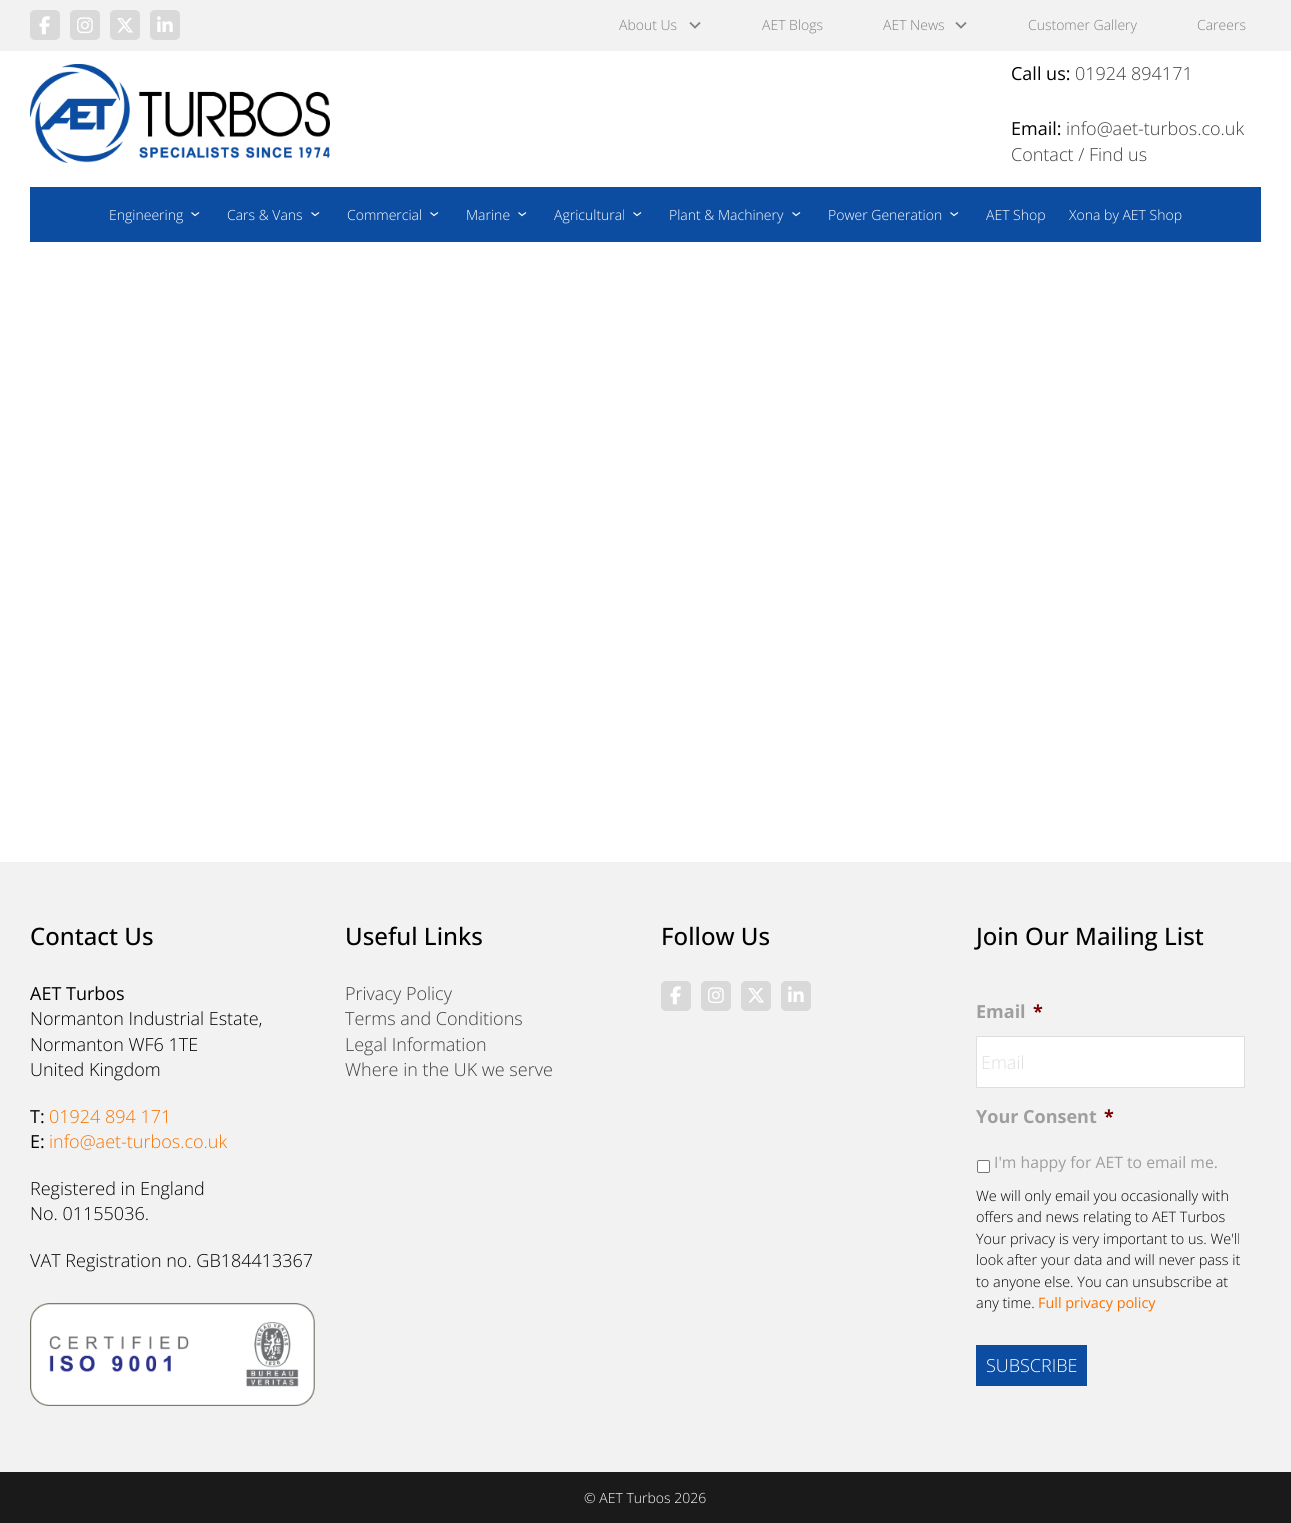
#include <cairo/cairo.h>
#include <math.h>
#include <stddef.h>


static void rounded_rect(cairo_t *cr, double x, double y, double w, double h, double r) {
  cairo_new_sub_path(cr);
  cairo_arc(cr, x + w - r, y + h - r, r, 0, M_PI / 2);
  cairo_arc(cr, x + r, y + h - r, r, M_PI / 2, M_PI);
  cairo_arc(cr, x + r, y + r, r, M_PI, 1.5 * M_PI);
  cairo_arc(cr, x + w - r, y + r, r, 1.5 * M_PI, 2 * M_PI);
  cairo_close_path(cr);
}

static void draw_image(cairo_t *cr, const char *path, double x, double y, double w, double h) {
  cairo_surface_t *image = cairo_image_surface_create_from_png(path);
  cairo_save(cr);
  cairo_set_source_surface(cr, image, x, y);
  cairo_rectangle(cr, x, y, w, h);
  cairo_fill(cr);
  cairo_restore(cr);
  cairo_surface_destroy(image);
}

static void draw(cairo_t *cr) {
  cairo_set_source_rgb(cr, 1, 1, 1);
  cairo_paint(cr);
  cairo_set_source_rgb(cr, 242 / 255.0, 242 / 255.0, 242 / 255.0);
  cairo_rectangle(cr, 0, 0, 1291, 51);
  cairo_fill(cr);
  cairo_set_source_rgb(cr, 217 / 255.0, 217 / 255.0, 217 / 255.0);
  rounded_rect(cr, 30, 10, 30, 30, 5);
  cairo_fill(cr);
  draw_image(cr, "images/1.png", 39, 16, 11, 19);
  rounded_rect(cr, 70, 10, 30, 30, 5);
  cairo_fill(cr);
  draw_image(cr, "images/2.png", 77, 17, 16, 17);
  rounded_rect(cr, 110, 10, 30, 30, 5);
  cairo_fill(cr);
  draw_image(cr, "images/3.png", 117, 18, 16, 15);
  rounded_rect(cr, 150, 10, 30, 30, 5);
  cairo_fill(cr);
  draw_image(cr, "images/4.png", 157, 16, 16, 16);
  cairo_new_path(cr);
  cairo_move_to(cr, 690, 22.5);
  cairo_line_to(cr, 695, 27.5);
  cairo_line_to(cr, 700, 22.5);
  cairo_set_source_rgb(cr, 128 / 255.0, 128 / 255.0, 128 / 255.0);
  cairo_set_line_width(cr, 1.8);
  cairo_stroke(cr);
  cairo_new_path(cr);
  cairo_move_to(cr, 956, 22.5);
  cairo_line_to(cr, 961, 27.5);
  cairo_line_to(cr, 966, 22.5);
  cairo_stroke(cr);
  draw_image(cr, "images/5.png", 30, 64, 300, 99);
  cairo_set_source_rgb(cr, 12 / 255.0, 77 / 255.0, 162 / 255.0);
  cairo_rectangle(cr, 30, 187, 1231, 55);
  cairo_fill(cr);
  cairo_new_path(cr);
  cairo_move_to(cr, 191.5, 212.5);
  cairo_line_to(cr, 195, 215.5);
  cairo_line_to(cr, 199, 212.5);
  cairo_set_source_rgb(cr, 1, 1, 1);
  cairo_set_line_width(cr, 1.2);
  cairo_stroke(cr);
  cairo_new_path(cr);
  cairo_move_to(cr, 311.5, 212.5);
  cairo_line_to(cr, 315, 215.5);
  cairo_line_to(cr, 319, 212.5);
  cairo_stroke(cr);
  cairo_new_path(cr);
  cairo_move_to(cr, 430.5, 212.5);
  cairo_line_to(cr, 434, 215.5);
  cairo_line_to(cr, 438, 212.5);
  cairo_stroke(cr);
  cairo_new_path(cr);
  cairo_move_to(cr, 518.5, 212.5);
  cairo_line_to(cr, 522, 215.5);
  cairo_line_to(cr, 526, 212.5);
  cairo_stroke(cr);
  cairo_new_path(cr);
  cairo_move_to(cr, 633.5, 212.5);
  cairo_line_to(cr, 637, 215.5);
  cairo_line_to(cr, 641, 212.5);
  cairo_stroke(cr);
  cairo_new_path(cr);
  cairo_move_to(cr, 792.5, 212.5);
  cairo_line_to(cr, 796, 215.5);
  cairo_line_to(cr, 800, 212.5);
  cairo_stroke(cr);
  cairo_new_path(cr);
  cairo_move_to(cr, 950.5, 212.5);
  cairo_line_to(cr, 954, 215.5);
  cairo_line_to(cr, 958, 212.5);
  cairo_stroke(cr);
  cairo_set_source_rgb(cr, 242 / 255.0, 242 / 255.0, 242 / 255.0);
  cairo_rectangle(cr, 0, 862, 1291, 610);
  cairo_fill(cr);
  draw_image(cr, "images/6.png", 30, 1303, 285, 103);
  cairo_set_source_rgb(cr, 217 / 255.0, 217 / 255.0, 217 / 255.0);
  rounded_rect(cr, 661, 981, 30, 30, 5);
  cairo_fill(cr);
  draw_image(cr, "images/1.png", 670, 986, 11, 19);
  rounded_rect(cr, 701, 981, 30, 30, 5);
  cairo_fill(cr);
  draw_image(cr, "images/2.png", 708, 987, 16, 17);
  rounded_rect(cr, 741, 981, 30, 30, 5);
  cairo_fill(cr);
  draw_image(cr, "images/3.png", 748, 988, 16, 15);
  rounded_rect(cr, 781, 981, 30, 30, 5);
  cairo_fill(cr);
  draw_image(cr, "images/4.png", 788, 986, 16, 16);
  cairo_set_source_rgb(cr, 1, 1, 1);
  cairo_rectangle(cr, 976.5, 1036.5, 268, 51);
  cairo_fill_preserve(cr);
  cairo_set_source_rgb(cr, 221 / 255.0, 222 / 255.0, 223 / 255.0);
  cairo_set_line_width(cr, 1);
  cairo_stroke(cr);
  cairo_set_source_rgb(cr, 1, 1, 1);
  rounded_rect(cr, 977.5, 1160.5, 12, 12, 1.5);
  cairo_fill_preserve(cr);
  cairo_set_source_rgb(cr, 118 / 255.0, 118 / 255.0, 118 / 255.0);
  cairo_stroke(cr);
  cairo_set_source_rgb(cr, 12 / 255.0, 77 / 255.0, 162 / 255.0);
  cairo_rectangle(cr, 976, 1345, 111, 41);
  cairo_fill(cr);
  cairo_set_source_rgb(cr, 26 / 255.0, 26 / 255.0, 26 / 255.0);
  cairo_rectangle(cr, 0, 1472, 1291, 51);
  cairo_fill(cr);
  cairo_select_font_face(cr, "Open Sans Light", CAIRO_FONT_SLANT_NORMAL, CAIRO_FONT_WEIGHT_NORMAL);
  cairo_set_font_size(cr, 14);
  cairo_set_source_rgb(cr, 128 / 255.0, 128 / 255.0, 128 / 255.0);
  cairo_move_to(cr, 619, 30);
  cairo_show_text(cr, "About Us");
  cairo_move_to(cr, 762, 30);
  cairo_show_text(cr, "AET Blogs");
  cairo_move_to(cr, 883, 30);
  cairo_show_text(cr, "AET News");
  cairo_move_to(cr, 1028, 30);
  cairo_show_text(cr, "Customer Gallery");
  cairo_move_to(cr, 1197, 30);
  cairo_show_text(cr, "Careers");
  cairo_select_font_face(cr, "Open Sans", CAIRO_FONT_SLANT_NORMAL, CAIRO_FONT_WEIGHT_NORMAL);
  cairo_set_font_size(cr, 18);
  cairo_set_source_rgb(cr, 0, 0, 0);
  cairo_move_to(cr, 1011, 80);
  cairo_show_text(cr, "Call us:");
  cairo_select_font_face(cr, "Open Sans Light", CAIRO_FONT_SLANT_NORMAL, CAIRO_FONT_WEIGHT_NORMAL);
  cairo_set_source_rgb(cr, 64 / 255.0, 64 / 255.0, 64 / 255.0);
  cairo_move_to(cr, 1075, 80);
  cairo_show_text(cr, "01924 894171");
  cairo_select_font_face(cr, "Open Sans", CAIRO_FONT_SLANT_NORMAL, CAIRO_FONT_WEIGHT_NORMAL);
  cairo_set_source_rgb(cr, 0, 0, 0);
  cairo_move_to(cr, 1011, 135);
  cairo_show_text(cr, "Email:");
  cairo_select_font_face(cr, "Open Sans Light", CAIRO_FONT_SLANT_NORMAL, CAIRO_FONT_WEIGHT_NORMAL);
  cairo_set_source_rgb(cr, 64 / 255.0, 64 / 255.0, 64 / 255.0);
  cairo_move_to(cr, 1066, 135);
  cairo_show_text(cr, "info@aet-turbos.co.uk");
  cairo_move_to(cr, 1011, 161);
  cairo_show_text(cr, "Contact / Find us");
  cairo_set_font_size(cr, 14);
  cairo_set_source_rgb(cr, 1, 1, 1);
  cairo_move_to(cr, 109, 220);
  cairo_show_text(cr, "Engineering");
  cairo_move_to(cr, 227, 220);
  cairo_show_text(cr, "Cars & Vans");
  cairo_move_to(cr, 347, 220);
  cairo_show_text(cr, "Commercial");
  cairo_move_to(cr, 466, 220);
  cairo_show_text(cr, "Marine");
  cairo_move_to(cr, 554, 220);
  cairo_show_text(cr, "Agricultural");
  cairo_move_to(cr, 669, 220);
  cairo_show_text(cr, "Plant & Machinery");
  cairo_move_to(cr, 828, 220);
  cairo_show_text(cr, "Power Generation");
  cairo_move_to(cr, 986, 220);
  cairo_show_text(cr, "AET Shop");
  cairo_move_to(cr, 1069, 220);
  cairo_show_text(cr, "Xona by AET Shop");
  cairo_select_font_face(cr, "Open Sans Medium", CAIRO_FONT_SLANT_NORMAL, CAIRO_FONT_WEIGHT_NORMAL);
  cairo_set_font_size(cr, 24);
  cairo_set_source_rgb(cr, 0, 0, 0);
  cairo_move_to(cr, 30, 945);
  cairo_show_text(cr, "Contact Us");
  cairo_select_font_face(cr, "Open Sans", CAIRO_FONT_SLANT_NORMAL, CAIRO_FONT_WEIGHT_NORMAL);
  cairo_set_font_size(cr, 18);
  cairo_move_to(cr, 30, 1000);
  cairo_show_text(cr, "AET Turbos");
  cairo_select_font_face(cr, "Open Sans Light", CAIRO_FONT_SLANT_NORMAL, CAIRO_FONT_WEIGHT_NORMAL);
  cairo_move_to(cr, 30, 1025);
  cairo_show_text(cr, "Normanton Industrial Estate,");
  cairo_move_to(cr, 30, 1051);
  cairo_show_text(cr, "Normanton WF6 1TE");
  cairo_move_to(cr, 30, 1076);
  cairo_show_text(cr, "United Kingdom");
  cairo_select_font_face(cr, "Open Sans", CAIRO_FONT_SLANT_NORMAL, CAIRO_FONT_WEIGHT_NORMAL);
  cairo_move_to(cr, 30, 1123);
  cairo_show_text(cr, "T:");
  cairo_select_font_face(cr, "Open Sans Light", CAIRO_FONT_SLANT_NORMAL, CAIRO_FONT_WEIGHT_NORMAL);
  cairo_set_source_rgb(cr, 247 / 255.0, 115 / 255.0, 0);
  cairo_move_to(cr, 49, 1123);
  cairo_show_text(cr, "01924 894 171");
  cairo_select_font_face(cr, "Open Sans", CAIRO_FONT_SLANT_NORMAL, CAIRO_FONT_WEIGHT_NORMAL);
  cairo_set_source_rgb(cr, 0, 0, 0);
  cairo_move_to(cr, 30, 1148);
  cairo_show_text(cr, "E:");
  cairo_select_font_face(cr, "Open Sans Light", CAIRO_FONT_SLANT_NORMAL, CAIRO_FONT_WEIGHT_NORMAL);
  cairo_set_source_rgb(cr, 247 / 255.0, 115 / 255.0, 0);
  cairo_move_to(cr, 49, 1148);
  cairo_show_text(cr, "info@aet-turbos.co.uk");
  cairo_set_source_rgb(cr, 0, 0, 0);
  cairo_move_to(cr, 30, 1195);
  cairo_show_text(cr, "Registered in England");
  cairo_move_to(cr, 30, 1220);
  cairo_show_text(cr, "No. 01155036.");
  cairo_move_to(cr, 30, 1267);
  cairo_show_text(cr, "VAT Registration no. GB184413367");
  cairo_select_font_face(cr, "Open Sans Medium", CAIRO_FONT_SLANT_NORMAL, CAIRO_FONT_WEIGHT_NORMAL);
  cairo_set_font_size(cr, 24);
  cairo_move_to(cr, 345, 945);
  cairo_show_text(cr, "Useful Links");
  cairo_select_font_face(cr, "Open Sans Light", CAIRO_FONT_SLANT_NORMAL, CAIRO_FONT_WEIGHT_NORMAL);
  cairo_set_font_size(cr, 18);
  cairo_set_source_rgb(cr, 64 / 255.0, 64 / 255.0, 64 / 255.0);
  cairo_move_to(cr, 345, 1000);
  cairo_show_text(cr, "Privacy Policy");
  cairo_move_to(cr, 345, 1025);
  cairo_show_text(cr, "Terms and Conditions");
  cairo_move_to(cr, 345, 1051);
  cairo_show_text(cr, "Legal Information");
  cairo_move_to(cr, 345, 1076);
  cairo_show_text(cr, "Where in the UK we serve");
  cairo_select_font_face(cr, "Open Sans Medium", CAIRO_FONT_SLANT_NORMAL, CAIRO_FONT_WEIGHT_NORMAL);
  cairo_set_font_size(cr, 24);
  cairo_set_source_rgb(cr, 0, 0, 0);
  cairo_move_to(cr, 661, 945);
  cairo_show_text(cr, "Follow Us");
  cairo_move_to(cr, 976, 945);
  cairo_show_text(cr, "Join Our Mailing List");
  cairo_select_font_face(cr, "Open Sans", CAIRO_FONT_SLANT_NORMAL, CAIRO_FONT_WEIGHT_BOLD);
  cairo_set_font_size(cr, 18);
  cairo_set_source_rgb(cr, 158 / 255.0, 158 / 255.0, 158 / 255.0);
  cairo_move_to(cr, 976, 1018);
  cairo_show_text(cr, "Email");
  cairo_set_source_rgb(cr, 121 / 255.0, 0, 0);
  cairo_move_to(cr, 1033, 1018);
  cairo_show_text(cr, "*");
  cairo_select_font_face(cr, "Open Sans Light", CAIRO_FONT_SLANT_NORMAL, CAIRO_FONT_WEIGHT_NORMAL);
  cairo_set_source_rgb(cr, 221 / 255.0, 222 / 255.0, 223 / 255.0);
  cairo_move_to(cr, 981, 1069);
  cairo_show_text(cr, "Email");
  cairo_select_font_face(cr, "Open Sans", CAIRO_FONT_SLANT_NORMAL, CAIRO_FONT_WEIGHT_BOLD);
  cairo_set_source_rgb(cr, 158 / 255.0, 158 / 255.0, 158 / 255.0);
  cairo_move_to(cr, 976, 1123);
  cairo_show_text(cr, "Your Consent");
  cairo_set_source_rgb(cr, 121 / 255.0, 0, 0);
  cairo_move_to(cr, 1104, 1123);
  cairo_show_text(cr, "*");
  cairo_select_font_face(cr, "Open Sans", CAIRO_FONT_SLANT_NORMAL, CAIRO_FONT_WEIGHT_NORMAL);
  cairo_set_font_size(cr, 15.75);
  cairo_set_source_rgb(cr, 158 / 255.0, 158 / 255.0, 158 / 255.0);
  cairo_move_to(cr, 994, 1168);
  cairo_show_text(cr, "I'm happy for AET to email me.");
  cairo_select_font_face(cr, "Open Sans Light", CAIRO_FONT_SLANT_NORMAL, CAIRO_FONT_WEIGHT_NORMAL);
  cairo_set_font_size(cr, 14.4);
  cairo_set_source_rgb(cr, 0, 0, 0);
  cairo_move_to(cr, 976, 1201);
  cairo_show_text(cr, "We will only email you occasionally with");
  cairo_move_to(cr, 976, 1222);
  cairo_show_text(cr, "offers and news relating to AET Turbos");
  cairo_move_to(cr, 976, 1244);
  cairo_show_text(cr, "Your privacy is very important to us. We'll");
  cairo_move_to(cr, 976, 1265);
  cairo_show_text(cr, "look after your data and will never pass it");
  cairo_move_to(cr, 976, 1287);
  cairo_show_text(cr, "to anyone else. You can unsubscribe at");
  cairo_move_to(cr, 976, 1308);
  cairo_show_text(cr, "any time.");
  cairo_select_font_face(cr, "Open Sans", CAIRO_FONT_SLANT_NORMAL, CAIRO_FONT_WEIGHT_NORMAL);
  cairo_set_source_rgb(cr, 247 / 255.0, 115 / 255.0, 0);
  cairo_move_to(cr, 1038, 1308);
  cairo_show_text(cr, "Full privacy policy");
  cairo_select_font_face(cr, "Open Sans Light", CAIRO_FONT_SLANT_NORMAL, CAIRO_FONT_WEIGHT_NORMAL);
  cairo_set_font_size(cr, 18);
  cairo_set_source_rgb(cr, 1, 1, 1);
  cairo_move_to(cr, 986, 1372);
  cairo_show_text(cr, "SUBSCRIBE");
  cairo_set_font_size(cr, 14);
  cairo_move_to(cr, 584, 1503);
  cairo_show_text(cr, "© AET Turbos 2026");
}

int main(void) {
  cairo_surface_t *surface = cairo_image_surface_create(CAIRO_FORMAT_RGB24, 1291, 1523);
  cairo_t *cr = cairo_create(surface);
  cairo_font_options_t *options = cairo_font_options_create();
  cairo_font_options_set_hint_metrics(options, CAIRO_HINT_METRICS_OFF);
  cairo_font_options_set_hint_style(options, CAIRO_HINT_STYLE_NONE);
  cairo_set_font_options(cr, options);
  cairo_set_miter_limit(cr, 4);
  draw(cr);
  cairo_surface_write_to_png(surface, "out.png");
  cairo_font_options_destroy(options);
  cairo_destroy(cr);
  cairo_surface_destroy(surface);
  return 0;
}
